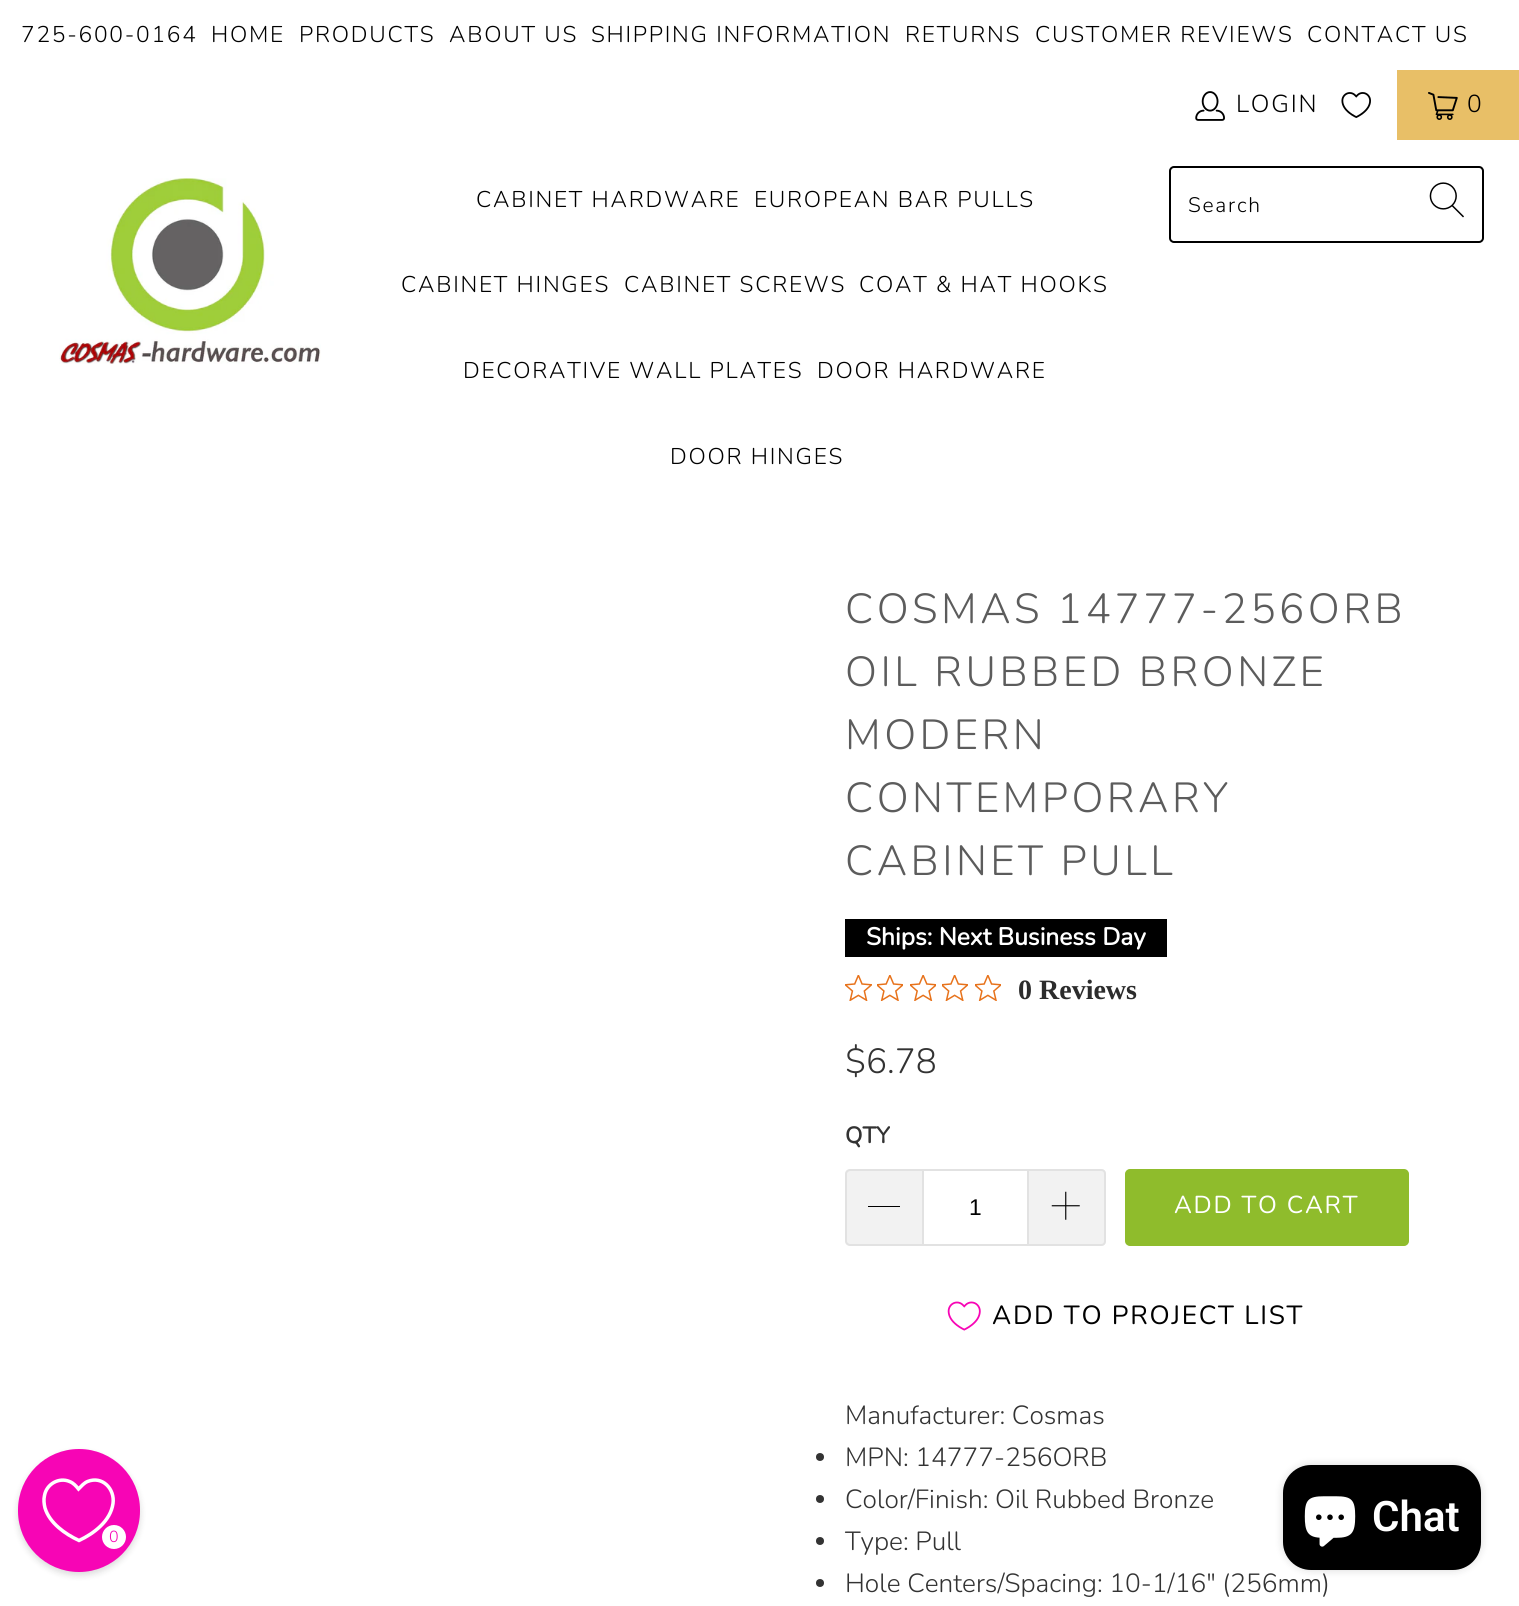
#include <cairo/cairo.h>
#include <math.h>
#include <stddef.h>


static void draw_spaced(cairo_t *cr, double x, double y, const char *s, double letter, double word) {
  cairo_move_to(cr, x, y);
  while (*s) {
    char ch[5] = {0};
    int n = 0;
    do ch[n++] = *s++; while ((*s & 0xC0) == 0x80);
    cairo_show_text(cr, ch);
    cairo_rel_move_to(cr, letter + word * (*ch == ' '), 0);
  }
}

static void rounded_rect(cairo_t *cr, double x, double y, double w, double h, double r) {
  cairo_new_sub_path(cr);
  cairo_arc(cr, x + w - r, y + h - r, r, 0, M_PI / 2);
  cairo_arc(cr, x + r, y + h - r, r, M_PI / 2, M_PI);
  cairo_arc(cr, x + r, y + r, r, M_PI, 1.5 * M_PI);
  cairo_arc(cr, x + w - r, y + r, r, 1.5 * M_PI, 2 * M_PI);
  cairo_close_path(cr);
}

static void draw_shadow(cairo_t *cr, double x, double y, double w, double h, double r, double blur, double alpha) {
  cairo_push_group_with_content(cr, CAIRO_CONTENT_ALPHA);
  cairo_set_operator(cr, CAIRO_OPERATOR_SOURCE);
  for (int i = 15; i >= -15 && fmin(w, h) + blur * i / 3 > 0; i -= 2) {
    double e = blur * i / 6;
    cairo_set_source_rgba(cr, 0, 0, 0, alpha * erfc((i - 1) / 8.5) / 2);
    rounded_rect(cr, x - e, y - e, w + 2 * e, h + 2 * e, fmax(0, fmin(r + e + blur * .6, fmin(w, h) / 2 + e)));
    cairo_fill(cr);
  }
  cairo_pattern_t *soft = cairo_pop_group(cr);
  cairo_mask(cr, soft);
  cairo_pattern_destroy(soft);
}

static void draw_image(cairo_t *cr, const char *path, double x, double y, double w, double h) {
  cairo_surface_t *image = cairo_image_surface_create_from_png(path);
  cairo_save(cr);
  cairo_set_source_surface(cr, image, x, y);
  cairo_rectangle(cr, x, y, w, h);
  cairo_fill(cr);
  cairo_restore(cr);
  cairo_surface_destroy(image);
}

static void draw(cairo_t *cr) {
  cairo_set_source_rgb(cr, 1, 1, 1);
  cairo_paint(cr);
  draw_image(cr, "images/1.png", 1195, 91, 30, 30);
  draw_image(cr, "images/2.png", 1341, 92, 30, 26);
  cairo_set_source_rgb(cr, 232 / 255.0, 191 / 255.0, 103 / 255.0);
  cairo_rectangle(cr, 1397, 70, 122, 70);
  cairo_fill(cr);
  draw_image(cr, "images/3.png", 1428, 92, 30, 28);
  draw_image(cr, "images/4.png", 59, 178, 262, 186);
  rounded_rect(cr, 1170, 167, 313, 75, 4);
  cairo_set_source_rgb(cr, 0, 0, 0);
  cairo_stroke(cr);
  draw_image(cr, "images/5.png", 1429, 182, 35, 36);
  cairo_rectangle(cr, 845, 919, 322, 38);
  cairo_fill(cr);
  draw_image(cr, "images/6.png", 845, 975, 27, 26);
  draw_image(cr, "images/7.png", 877, 975, 26, 26);
  draw_image(cr, "images/8.png", 910, 975, 26, 26);
  draw_image(cr, "images/9.png", 942, 975, 26, 26);
  draw_image(cr, "images/7.png", 975, 975, 26, 26);
  cairo_set_source_rgb(cr, 242 / 255.0, 242 / 255.0, 242 / 255.0);
  cairo_new_path(cr);
  cairo_move_to(cr, 850, 1169);
  cairo_line_to(cr, 922, 1169);
  cairo_line_to(cr, 922, 1246);
  cairo_line_to(cr, 850, 1246);
  cairo_curve_to(cr, 847, 1246, 845, 1244, 845, 1241);
  cairo_line_to(cr, 845, 1174);
  cairo_curve_to(cr, 845, 1171, 847, 1169, 850, 1169);
  cairo_close_path(cr);
  cairo_fill(cr);
  cairo_set_source_rgb(cr, 226 / 255.0, 226 / 255.0, 226 / 255.0);
  cairo_set_fill_rule(cr, CAIRO_FILL_RULE_EVEN_ODD);
  cairo_new_path(cr);
  cairo_move_to(cr, 850, 1169);
  cairo_line_to(cr, 922, 1169);
  cairo_line_to(cr, 922, 1246);
  cairo_line_to(cr, 850, 1246);
  cairo_curve_to(cr, 848, 1246, 845, 1244, 845, 1241);
  cairo_line_to(cr, 845, 1174);
  cairo_curve_to(cr, 845, 1171, 848, 1169, 850, 1169);
  cairo_close_path(cr);
  cairo_move_to(cr, 850, 1171);
  cairo_line_to(cr, 922, 1171);
  cairo_line_to(cr, 922, 1244);
  cairo_line_to(cr, 850, 1244);
  cairo_curve_to(cr, 849, 1244, 847, 1243, 847, 1241);
  cairo_line_to(cr, 847, 1174);
  cairo_curve_to(cr, 847, 1172, 849, 1171, 850, 1171);
  cairo_close_path(cr);
  cairo_fill(cr);
  cairo_set_source_rgb(cr, 0, 0, 0);
  cairo_rectangle(cr, 868, 1206, 32, 1);
  cairo_fill(cr);
  cairo_rectangle(cr, 923, 1170, 105, 75);
  cairo_set_source_rgb(cr, 226 / 255.0, 226 / 255.0, 226 / 255.0);
  cairo_stroke(cr);
  cairo_set_source_rgb(cr, 242 / 255.0, 242 / 255.0, 242 / 255.0);
  cairo_new_path(cr);
  cairo_move_to(cr, 1029, 1169);
  cairo_line_to(cr, 1101, 1169);
  cairo_curve_to(cr, 1104, 1169, 1106, 1171, 1106, 1174);
  cairo_line_to(cr, 1106, 1241);
  cairo_curve_to(cr, 1106, 1244, 1104, 1246, 1101, 1246);
  cairo_line_to(cr, 1029, 1246);
  cairo_close_path(cr);
  cairo_fill(cr);
  cairo_set_source_rgb(cr, 226 / 255.0, 226 / 255.0, 226 / 255.0);
  cairo_new_path(cr);
  cairo_move_to(cr, 1029, 1169);
  cairo_line_to(cr, 1101, 1169);
  cairo_curve_to(cr, 1104, 1169, 1106, 1171, 1106, 1174);
  cairo_line_to(cr, 1106, 1241);
  cairo_curve_to(cr, 1106, 1244, 1104, 1246, 1101, 1246);
  cairo_line_to(cr, 1029, 1246);
  cairo_close_path(cr);
  cairo_move_to(cr, 1029, 1171);
  cairo_line_to(cr, 1101, 1171);
  cairo_curve_to(cr, 1103, 1171, 1104, 1172, 1104, 1174);
  cairo_line_to(cr, 1104, 1241);
  cairo_curve_to(cr, 1104, 1243, 1103, 1244, 1101, 1244);
  cairo_line_to(cr, 1029, 1244);
  cairo_close_path(cr);
  cairo_fill(cr);
  draw_image(cr, "images/10.png", 1051, 1191, 29, 29);
  cairo_set_source_rgb(cr, 143 / 255.0, 188 / 255.0, 44 / 255.0);
  rounded_rect(cr, 1126, 1170, 282, 75, 4);
  cairo_fill_preserve(cr);
  cairo_stroke(cr);
  draw_image(cr, "images/11.png", 947, 1301, 34, 30);
  cairo_set_source_rgb(cr, 51 / 255.0, 51 / 255.0, 51 / 255.0);
  cairo_arc(cr, 820, 1457, 4, 0, 2 * M_PI);
  cairo_fill(cr);
  cairo_arc(cr, 820, 1499, 4, 0, 2 * M_PI);
  cairo_fill(cr);
  cairo_arc(cr, 820, 1541, 4, 0, 2 * M_PI);
  cairo_fill(cr);
  cairo_arc(cr, 820, 1583, 4, 0, 2 * M_PI);
  cairo_fill(cr);
  cairo_set_source_rgb(cr, 0, 0, 0);
  draw_shadow(cr, 1283, 1465, 198, 105, 28, 4.5, 0.15);
  cairo_set_source_rgb(cr, 0, 0, 0);
  rounded_rect(cr, 1283, 1465, 198, 105, 28);
  cairo_fill(cr);
  draw_image(cr, "images/12.png", 1304, 1496, 52, 51);
  cairo_set_source_rgb(cr, 0, 0, 0);
  draw_shadow(cr, 18, 1453, 122, 122, 61, 3.5, 0.15);
  cairo_set_source_rgb(cr, 247 / 255.0, 5 / 255.0, 181 / 255.0);
  rounded_rect(cr, 20, 1451, 118, 119, 59);
  cairo_fill_preserve(cr);
  cairo_set_line_width(cr, 4);
  cairo_stroke(cr);
  cairo_new_path(cr);
  cairo_move_to(cr, 79, 1540.5);
  cairo_curve_to(cr, 65, 1534, 49.5, 1523, 45, 1508);
  cairo_curve_to(cr, 44, 1504, 43.5, 1499.5, 44.5, 1495.5);
  cairo_curve_to(cr, 46.5, 1484, 59, 1477, 69.5, 1481.5);
  cairo_curve_to(cr, 73.5, 1483, 76, 1486, 78.5, 1489);
  cairo_curve_to(cr, 81.5, 1486, 84, 1483, 87.5, 1481.5);
  cairo_curve_to(cr, 102.5, 1475.5, 115, 1489, 113, 1503.5);
  cairo_curve_to(cr, 110.5, 1521, 94, 1533.5, 79, 1540.5);
  cairo_close_path(cr);
  cairo_set_source_rgb(cr, 1, 1, 1);
  cairo_set_line_width(cr, 3.5);
  cairo_stroke(cr);
  cairo_arc(cr, 114, 1537, 13, 0, 2 * M_PI);
  cairo_fill_preserve(cr);
  cairo_set_source_rgb(cr, 247 / 255.0, 5 / 255.0, 181 / 255.0);
  cairo_set_line_width(cr, 2);
  cairo_stroke(cr);
  cairo_select_font_face(cr, "Nunito Light", CAIRO_FONT_SLANT_NORMAL, CAIRO_FONT_WEIGHT_NORMAL);
  cairo_set_font_size(cr, 22.75);
  cairo_set_source_rgb(cr, 0, 0, 0);
  draw_spaced(cr, 21, 42, "725-600-0164", 1.75, 0);
  draw_spaced(cr, 211, 42, "HOME", 1.75, 0);
  draw_spaced(cr, 299, 42, "PRODUCTS", 1.75, 0);
  draw_spaced(cr, 449, 42, "ABOUT US", 1.75, 0);
  draw_spaced(cr, 591, 42, "SHIPPING INFORMATION", 1.75, 0);
  draw_spaced(cr, 905, 42, "RETURNS", 1.75, 0);
  draw_spaced(cr, 1035, 42, "CUSTOMER REVIEWS", 1.75, 0);
  draw_spaced(cr, 1307, 42, "CONTACT US", 1.75, 0);
  cairo_set_font_size(cr, 24.5);
  draw_spaced(cr, 1236, 112, "LOGIN", 1.75, 0);
  draw_spaced(cr, 1467, 112, "0", 1.75, 0);
  cairo_set_font_size(cr, 22.75);
  draw_spaced(cr, 476, 207, "CABINET HARDWARE", 1.75, 0);
  draw_spaced(cr, 754, 207, "EUROPEAN BAR PULLS", 1.75, 0);
  draw_spaced(cr, 401, 292, "CABINET HINGES", 1.75, 0);
  draw_spaced(cr, 624, 292, "CABINET SCREWS", 1.75, 0);
  draw_spaced(cr, 859, 292, "COAT & HAT HOOKS", 1.75, 0);
  draw_spaced(cr, 463, 378, "DECORATIVE WALL PLATES", 1.75, 0);
  draw_spaced(cr, 817, 378, "DOOR HARDWARE", 1.75, 0);
  draw_spaced(cr, 670, 464, "DOOR HINGES", 1.75, 0);
  cairo_set_font_size(cr, 21);
  draw_spaced(cr, 1188, 212, "Search", 1.75, 0);
  cairo_set_font_size(cr, 42);
  cairo_set_source_rgb(cr, 92 / 255.0, 92 / 255.0, 92 / 255.0);
  draw_spaced(cr, 845, 623, "COSMAS 14777-256ORB", 3.5, 0);
  draw_spaced(cr, 845, 686, "OIL RUBBED BRONZE", 3.5, 0);
  draw_spaced(cr, 845, 749, "MODERN", 3.5, 0);
  draw_spaced(cr, 845, 812, "CONTEMPORARY", 3.5, 0);
  draw_spaced(cr, 845, 875, "CABINET PULL", 3.5, 0);
  cairo_select_font_face(cr, "Nunito", CAIRO_FONT_SLANT_NORMAL, CAIRO_FONT_WEIGHT_BOLD);
  cairo_set_font_size(cr, 24.5);
  cairo_set_source_rgb(cr, 1, 1, 1);
  cairo_move_to(cr, 866, 945);
  cairo_show_text(cr, "Ships: Next Business Day");
  cairo_select_font_face(cr, "Liberation Serif", CAIRO_FONT_SLANT_NORMAL, CAIRO_FONT_WEIGHT_BOLD);
  cairo_set_font_size(cr, 28);
  cairo_set_source_rgb(cr, 44 / 255.0, 44 / 255.0, 44 / 255.0);
  cairo_move_to(cr, 1018, 999);
  cairo_show_text(cr, "0 Reviews");
  cairo_select_font_face(cr, "Nunito Light", CAIRO_FONT_SLANT_NORMAL, CAIRO_FONT_WEIGHT_NORMAL);
  cairo_set_font_size(cr, 35);
  cairo_set_source_rgb(cr, 51 / 255.0, 51 / 255.0, 51 / 255.0);
  cairo_move_to(cr, 845, 1073);
  cairo_show_text(cr, "$6.78");
  cairo_select_font_face(cr, "Nunito", CAIRO_FONT_SLANT_NORMAL, CAIRO_FONT_WEIGHT_BOLD);
  cairo_set_font_size(cr, 22.75);
  cairo_move_to(cr, 845, 1143);
  cairo_show_text(cr, "QTY");
  cairo_select_font_face(cr, "Liberation Sans", CAIRO_FONT_SLANT_NORMAL, CAIRO_FONT_WEIGHT_NORMAL);
  cairo_set_source_rgb(cr, 0, 0, 0);
  cairo_move_to(cr, 969, 1215);
  cairo_show_text(cr, "1");
  cairo_select_font_face(cr, "Nunito", CAIRO_FONT_SLANT_NORMAL, CAIRO_FONT_WEIGHT_NORMAL);
  cairo_set_font_size(cr, 24.5);
  cairo_set_source_rgb(cr, 1, 1, 1);
  draw_spaced(cr, 1174, 1213, "ADD TO CART", 1.75, 0);
  cairo_set_font_size(cr, 26.25);
  cairo_set_source_rgb(cr, 0, 0, 0);
  draw_spaced(cr, 992, 1324, "ADD TO PROJECT LIST", 1.75, 0);
  cairo_select_font_face(cr, "Nunito Light", CAIRO_FONT_SLANT_NORMAL, CAIRO_FONT_WEIGHT_NORMAL);
  cairo_set_source_rgb(cr, 51 / 255.0, 51 / 255.0, 51 / 255.0);
  cairo_move_to(cr, 845, 1424);
  cairo_show_text(cr, "Manufacturer: Cosmas");
  cairo_move_to(cr, 845, 1466);
  cairo_show_text(cr, "MPN: 14777-256ORB");
  cairo_move_to(cr, 845, 1508);
  cairo_show_text(cr, "Color/Finish: Oil Rubbed Bronze");
  cairo_move_to(cr, 845, 1550);
  cairo_show_text(cr, "Type: Pull");
  cairo_move_to(cr, 845, 1592);
  cairo_show_text(cr, "Hole Centers/Spacing: 10-1/16\" (256mm)");
  cairo_select_font_face(cr, "Roboto SemiBold", CAIRO_FONT_SLANT_NORMAL, CAIRO_FONT_WEIGHT_NORMAL);
  cairo_set_font_size(cr, 42);
  cairo_set_source_rgb(cr, 1, 1, 1);
  cairo_move_to(cr, 1372, 1531);
  cairo_show_text(cr, "Chat");
  cairo_select_font_face(cr, "Nunito Light", CAIRO_FONT_SLANT_NORMAL, CAIRO_FONT_WEIGHT_NORMAL);
  cairo_set_font_size(cr, 16);
  cairo_set_source_rgb(cr, 247 / 255.0, 5 / 255.0, 181 / 255.0);
  cairo_move_to(cr, 109, 1542);
  cairo_show_text(cr, "0");
}

int main(void) {
  cairo_surface_t *surface = cairo_image_surface_create(CAIRO_FORMAT_RGB24, 1519, 1606);
  cairo_t *cr = cairo_create(surface);
  cairo_font_options_t *options = cairo_font_options_create();
  cairo_font_options_set_hint_metrics(options, CAIRO_HINT_METRICS_OFF);
  cairo_font_options_set_hint_style(options, CAIRO_HINT_STYLE_NONE);
  cairo_set_font_options(cr, options);
  cairo_set_miter_limit(cr, 4);
  draw(cr);
  cairo_surface_write_to_png(surface, "out.png");
  cairo_font_options_destroy(options);
  cairo_destroy(cr);
  cairo_surface_destroy(surface);
  return 0;
}
